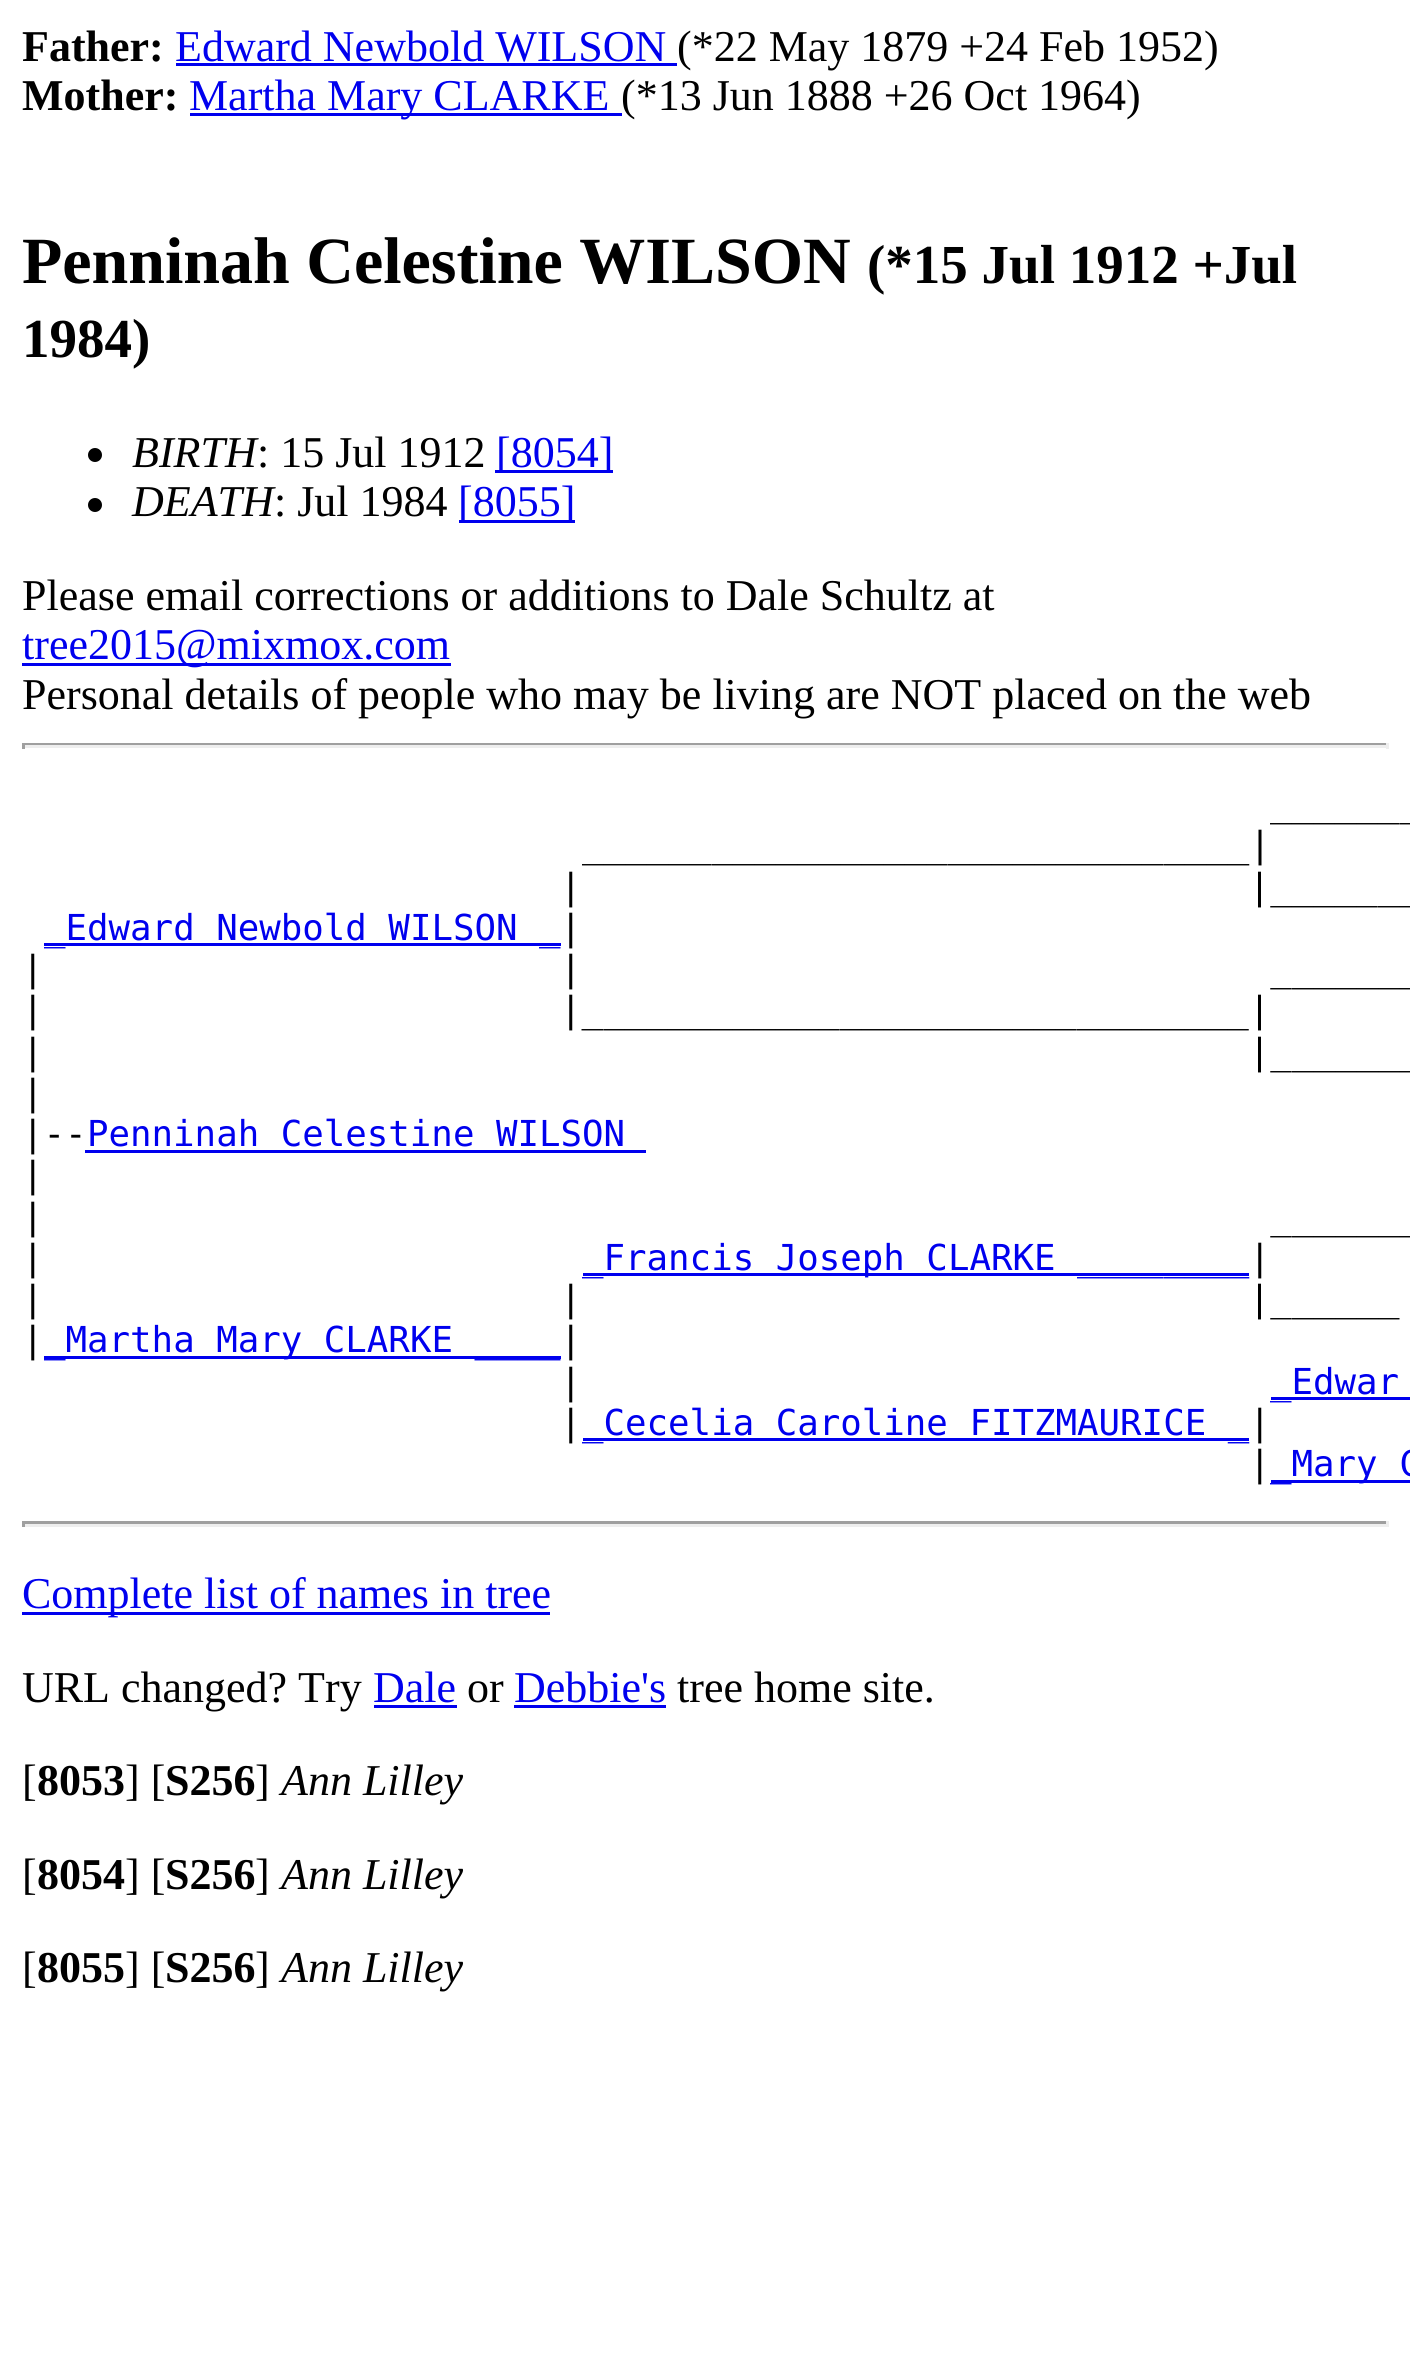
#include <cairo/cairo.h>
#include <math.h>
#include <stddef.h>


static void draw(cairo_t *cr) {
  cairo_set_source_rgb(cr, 1, 1, 1);
  cairo_paint(cr);
  cairo_set_source_rgb(cr, 0, 0, 238 / 255.0);
  cairo_rectangle(cr, 176, 63, 501, 3);
  cairo_fill(cr);
  cairo_rectangle(cr, 190, 113, 432, 3);
  cairo_fill(cr);
  cairo_set_source_rgb(cr, 0, 0, 0);
  cairo_arc(cr, 95, 455, 7, 0, 2 * M_PI);
  cairo_fill(cr);
  cairo_set_source_rgb(cr, 0, 0, 238 / 255.0);
  cairo_rectangle(cr, 495, 470, 118, 3);
  cairo_fill(cr);
  cairo_set_source_rgb(cr, 0, 0, 0);
  cairo_arc(cr, 95, 505, 7, 0, 2 * M_PI);
  cairo_fill(cr);
  cairo_set_source_rgb(cr, 0, 0, 238 / 255.0);
  cairo_rectangle(cr, 459, 520, 116, 3);
  cairo_fill(cr);
  cairo_rectangle(cr, 22, 663, 429, 3);
  cairo_fill(cr);
  cairo_set_source_rgb(cr, 159 / 255.0, 159 / 255.0, 159 / 255.0);
  cairo_rectangle(cr, 22, 743, 1367, 2);
  cairo_fill(cr);
  cairo_set_source_rgb(cr, 238 / 255.0, 238 / 255.0, 238 / 255.0);
  cairo_rectangle(cr, 1386, 743, 3, 6);
  cairo_fill(cr);
  cairo_rectangle(cr, 22, 745, 1367, 3);
  cairo_fill(cr);
  cairo_set_source_rgb(cr, 159 / 255.0, 159 / 255.0, 159 / 255.0);
  cairo_rectangle(cr, 22, 743, 3, 6);
  cairo_fill(cr);
  cairo_set_source_rgb(cr, 0, 0, 238 / 255.0);
  cairo_rectangle(cr, 44, 943, 517, 3);
  cairo_fill(cr);
  cairo_rectangle(cr, 85, 1150, 561, 3);
  cairo_fill(cr);
  cairo_rectangle(cr, 583, 1273, 666, 3);
  cairo_fill(cr);
  cairo_rectangle(cr, 44, 1356, 517, 3);
  cairo_fill(cr);
  cairo_rectangle(cr, 1271, 1397, 139, 3);
  cairo_fill(cr);
  cairo_rectangle(cr, 583, 1438, 666, 3);
  cairo_fill(cr);
  cairo_rectangle(cr, 1271, 1480, 139, 3);
  cairo_fill(cr);
  cairo_set_source_rgb(cr, 159 / 255.0, 159 / 255.0, 159 / 255.0);
  cairo_rectangle(cr, 22, 1521, 1367, 3);
  cairo_fill(cr);
  cairo_set_source_rgb(cr, 238 / 255.0, 238 / 255.0, 238 / 255.0);
  cairo_rectangle(cr, 1386, 1521, 3, 6);
  cairo_fill(cr);
  cairo_rectangle(cr, 22, 1524, 1367, 3);
  cairo_fill(cr);
  cairo_set_source_rgb(cr, 159 / 255.0, 159 / 255.0, 159 / 255.0);
  cairo_rectangle(cr, 22, 1521, 3, 6);
  cairo_fill(cr);
  cairo_set_source_rgb(cr, 0, 0, 238 / 255.0);
  cairo_rectangle(cr, 22, 1612, 528, 3);
  cairo_fill(cr);
  cairo_rectangle(cr, 374, 1705, 83, 3);
  cairo_fill(cr);
  cairo_rectangle(cr, 514, 1705, 152, 3);
  cairo_fill(cr);
  cairo_select_font_face(cr, "Liberation Serif", CAIRO_FONT_SLANT_NORMAL, CAIRO_FONT_WEIGHT_BOLD);
  cairo_set_font_size(cr, 44);
  cairo_set_source_rgb(cr, 0, 0, 0);
  cairo_move_to(cr, 22, 61);
  cairo_show_text(cr, "Father:");
  cairo_select_font_face(cr, "Liberation Serif", CAIRO_FONT_SLANT_NORMAL, CAIRO_FONT_WEIGHT_NORMAL);
  cairo_set_source_rgb(cr, 0, 0, 238 / 255.0);
  cairo_move_to(cr, 175, 61);
  cairo_show_text(cr, "Edward Newbold WILSON");
  cairo_set_source_rgb(cr, 0, 0, 0);
  cairo_move_to(cr, 677, 61);
  cairo_show_text(cr, "(*22 May 1879 +24 Feb 1952)");
  cairo_select_font_face(cr, "Liberation Serif", CAIRO_FONT_SLANT_NORMAL, CAIRO_FONT_WEIGHT_BOLD);
  cairo_move_to(cr, 22, 110);
  cairo_show_text(cr, "Mother:");
  cairo_select_font_face(cr, "Liberation Serif", CAIRO_FONT_SLANT_NORMAL, CAIRO_FONT_WEIGHT_NORMAL);
  cairo_set_source_rgb(cr, 0, 0, 238 / 255.0);
  cairo_move_to(cr, 189, 110);
  cairo_show_text(cr, "Martha Mary CLARKE");
  cairo_set_source_rgb(cr, 0, 0, 0);
  cairo_move_to(cr, 621, 110);
  cairo_show_text(cr, "(*13 Jun 1888 +26 Oct 1964)");
  cairo_select_font_face(cr, "Liberation Serif", CAIRO_FONT_SLANT_NORMAL, CAIRO_FONT_WEIGHT_BOLD);
  cairo_set_font_size(cr, 66);
  cairo_move_to(cr, 22, 283);
  cairo_show_text(cr, "Penninah Celestine WILSON");
  cairo_set_font_size(cr, 55);
  cairo_move_to(cr, 867, 283);
  cairo_show_text(cr, "(*15 Jul 1912 +Jul");
  cairo_move_to(cr, 22, 357);
  cairo_show_text(cr, "1984)");
  cairo_select_font_face(cr, "Liberation Serif", CAIRO_FONT_SLANT_ITALIC, CAIRO_FONT_WEIGHT_NORMAL);
  cairo_set_font_size(cr, 44);
  cairo_move_to(cr, 132, 467);
  cairo_show_text(cr, "BIRTH");
  cairo_select_font_face(cr, "Liberation Serif", CAIRO_FONT_SLANT_NORMAL, CAIRO_FONT_WEIGHT_NORMAL);
  cairo_move_to(cr, 257, 467);
  cairo_show_text(cr, ": 15 Jul 1912");
  cairo_set_source_rgb(cr, 0, 0, 238 / 255.0);
  cairo_move_to(cr, 496, 467);
  cairo_show_text(cr, "[8054]");
  cairo_select_font_face(cr, "Liberation Serif", CAIRO_FONT_SLANT_ITALIC, CAIRO_FONT_WEIGHT_NORMAL);
  cairo_set_source_rgb(cr, 0, 0, 0);
  cairo_move_to(cr, 132, 516);
  cairo_show_text(cr, "DEATH");
  cairo_select_font_face(cr, "Liberation Serif", CAIRO_FONT_SLANT_NORMAL, CAIRO_FONT_WEIGHT_NORMAL);
  cairo_move_to(cr, 274, 516);
  cairo_show_text(cr, ": Jul 1984");
  cairo_set_source_rgb(cr, 0, 0, 238 / 255.0);
  cairo_move_to(cr, 458, 516);
  cairo_show_text(cr, "[8055]");
  cairo_set_source_rgb(cr, 0, 0, 0);
  cairo_move_to(cr, 22, 610);
  cairo_show_text(cr, "Please email corrections or additions to Dale Schultz at");
  cairo_set_source_rgb(cr, 0, 0, 238 / 255.0);
  cairo_move_to(cr, 22, 659);
  cairo_show_text(cr, "tree2015@mixmox.com");
  cairo_set_source_rgb(cr, 0, 0, 0);
  cairo_move_to(cr, 22, 709);
  cairo_show_text(cr, "Personal details of people who may be living are NOT placed on the web");
  cairo_select_font_face(cr, "DejaVu Sans Mono", CAIRO_FONT_SLANT_NORMAL, CAIRO_FONT_WEIGHT_NORMAL);
  cairo_set_font_size(cr, 35.75);
  cairo_move_to(cr, 1270, 816);
  cairo_show_text(cr, "_______");
  cairo_move_to(cr, 582, 857);
  cairo_show_text(cr, "_______________________________|");
  cairo_move_to(cr, 560, 899);
  cairo_show_text(cr, "|                               |_______");
  cairo_set_source_rgb(cr, 0, 0, 238 / 255.0);
  cairo_move_to(cr, 44, 940);
  cairo_show_text(cr, "_Edward Newbold WILSON _");
  cairo_set_source_rgb(cr, 0, 0, 0);
  cairo_move_to(cr, 560, 940);
  cairo_show_text(cr, "|");
  cairo_move_to(cr, 22, 981);
  cairo_show_text(cr, "|                        |                                _______");
  cairo_move_to(cr, 22, 1022);
  cairo_show_text(cr, "|                        |_______________________________|");
  cairo_move_to(cr, 22, 1064);
  cairo_show_text(cr, "|                                                        |_______");
  cairo_move_to(cr, 22, 1105);
  cairo_show_text(cr, "|");
  cairo_move_to(cr, 22, 1146);
  cairo_show_text(cr, "|--");
  cairo_set_source_rgb(cr, 0, 0, 238 / 255.0);
  cairo_move_to(cr, 87, 1146);
  cairo_show_text(cr, "Penninah Celestine WILSON");
  cairo_set_source_rgb(cr, 0, 0, 0);
  cairo_move_to(cr, 22, 1187);
  cairo_show_text(cr, "|");
  cairo_move_to(cr, 22, 1229);
  cairo_show_text(cr, "|                                                         _______");
  cairo_move_to(cr, 22, 1270);
  cairo_show_text(cr, "|");
  cairo_set_source_rgb(cr, 0, 0, 238 / 255.0);
  cairo_move_to(cr, 582, 1270);
  cairo_show_text(cr, "_Francis Joseph CLARKE ________");
  cairo_set_source_rgb(cr, 0, 0, 0);
  cairo_move_to(cr, 1249, 1270);
  cairo_show_text(cr, "|");
  cairo_move_to(cr, 22, 1311);
  cairo_show_text(cr, "|                        |                               |______");
  cairo_move_to(cr, 22, 1352);
  cairo_show_text(cr, "|");
  cairo_set_source_rgb(cr, 0, 0, 238 / 255.0);
  cairo_move_to(cr, 44, 1352);
  cairo_show_text(cr, "_Martha Mary CLARKE ____");
  cairo_set_source_rgb(cr, 0, 0, 0);
  cairo_move_to(cr, 560, 1352);
  cairo_show_text(cr, "|");
  cairo_move_to(cr, 560, 1394);
  cairo_show_text(cr, "|");
  cairo_set_source_rgb(cr, 0, 0, 238 / 255.0);
  cairo_move_to(cr, 1270, 1394);
  cairo_show_text(cr, "_Edwar");
  cairo_set_source_rgb(cr, 0, 0, 0);
  cairo_move_to(cr, 560, 1435);
  cairo_show_text(cr, "|");
  cairo_set_source_rgb(cr, 0, 0, 238 / 255.0);
  cairo_move_to(cr, 582, 1435);
  cairo_show_text(cr, "_Cecelia Caroline FITZMAURICE _");
  cairo_set_source_rgb(cr, 0, 0, 0);
  cairo_move_to(cr, 1249, 1435);
  cairo_show_text(cr, "|");
  cairo_move_to(cr, 1249, 1476);
  cairo_show_text(cr, "|");
  cairo_set_source_rgb(cr, 0, 0, 238 / 255.0);
  cairo_move_to(cr, 1270, 1476);
  cairo_show_text(cr, "_Mary C");
  cairo_select_font_face(cr, "Liberation Serif", CAIRO_FONT_SLANT_NORMAL, CAIRO_FONT_WEIGHT_NORMAL);
  cairo_set_font_size(cr, 44);
  cairo_move_to(cr, 22, 1608);
  cairo_show_text(cr, "Complete list of names in tree");
  cairo_set_source_rgb(cr, 0, 0, 0);
  cairo_move_to(cr, 22, 1702);
  cairo_show_text(cr, "URL changed? Try");
  cairo_set_source_rgb(cr, 0, 0, 238 / 255.0);
  cairo_move_to(cr, 373, 1702);
  cairo_show_text(cr, "Dale");
  cairo_set_source_rgb(cr, 0, 0, 0);
  cairo_move_to(cr, 467, 1702);
  cairo_show_text(cr, "or");
  cairo_set_source_rgb(cr, 0, 0, 238 / 255.0);
  cairo_move_to(cr, 514, 1702);
  cairo_show_text(cr, "Debbie's");
  cairo_set_source_rgb(cr, 0, 0, 0);
  cairo_move_to(cr, 677, 1702);
  cairo_show_text(cr, "tree home site.");
  cairo_move_to(cr, 22, 1795);
  cairo_show_text(cr, "[");
  cairo_select_font_face(cr, "Liberation Serif", CAIRO_FONT_SLANT_NORMAL, CAIRO_FONT_WEIGHT_BOLD);
  cairo_move_to(cr, 37, 1795);
  cairo_show_text(cr, "8053");
  cairo_select_font_face(cr, "Liberation Serif", CAIRO_FONT_SLANT_NORMAL, CAIRO_FONT_WEIGHT_NORMAL);
  cairo_move_to(cr, 125, 1795);
  cairo_show_text(cr, "] [");
  cairo_select_font_face(cr, "Liberation Serif", CAIRO_FONT_SLANT_NORMAL, CAIRO_FONT_WEIGHT_BOLD);
  cairo_move_to(cr, 165, 1795);
  cairo_show_text(cr, "S256");
  cairo_select_font_face(cr, "Liberation Serif", CAIRO_FONT_SLANT_NORMAL, CAIRO_FONT_WEIGHT_NORMAL);
  cairo_move_to(cr, 255, 1795);
  cairo_show_text(cr, "]");
  cairo_select_font_face(cr, "Liberation Serif", CAIRO_FONT_SLANT_ITALIC, CAIRO_FONT_WEIGHT_NORMAL);
  cairo_move_to(cr, 281, 1795);
  cairo_show_text(cr, "Ann Lilley");
  cairo_select_font_face(cr, "Liberation Serif", CAIRO_FONT_SLANT_NORMAL, CAIRO_FONT_WEIGHT_NORMAL);
  cairo_move_to(cr, 22, 1889);
  cairo_show_text(cr, "[");
  cairo_select_font_face(cr, "Liberation Serif", CAIRO_FONT_SLANT_NORMAL, CAIRO_FONT_WEIGHT_BOLD);
  cairo_move_to(cr, 37, 1889);
  cairo_show_text(cr, "8054");
  cairo_select_font_face(cr, "Liberation Serif", CAIRO_FONT_SLANT_NORMAL, CAIRO_FONT_WEIGHT_NORMAL);
  cairo_move_to(cr, 125, 1889);
  cairo_show_text(cr, "] [");
  cairo_select_font_face(cr, "Liberation Serif", CAIRO_FONT_SLANT_NORMAL, CAIRO_FONT_WEIGHT_BOLD);
  cairo_move_to(cr, 165, 1889);
  cairo_show_text(cr, "S256");
  cairo_select_font_face(cr, "Liberation Serif", CAIRO_FONT_SLANT_NORMAL, CAIRO_FONT_WEIGHT_NORMAL);
  cairo_move_to(cr, 255, 1889);
  cairo_show_text(cr, "]");
  cairo_select_font_face(cr, "Liberation Serif", CAIRO_FONT_SLANT_ITALIC, CAIRO_FONT_WEIGHT_NORMAL);
  cairo_move_to(cr, 281, 1889);
  cairo_show_text(cr, "Ann Lilley");
  cairo_select_font_face(cr, "Liberation Serif", CAIRO_FONT_SLANT_NORMAL, CAIRO_FONT_WEIGHT_NORMAL);
  cairo_move_to(cr, 22, 1982);
  cairo_show_text(cr, "[");
  cairo_select_font_face(cr, "Liberation Serif", CAIRO_FONT_SLANT_NORMAL, CAIRO_FONT_WEIGHT_BOLD);
  cairo_move_to(cr, 37, 1982);
  cairo_show_text(cr, "8055");
  cairo_select_font_face(cr, "Liberation Serif", CAIRO_FONT_SLANT_NORMAL, CAIRO_FONT_WEIGHT_NORMAL);
  cairo_move_to(cr, 125, 1982);
  cairo_show_text(cr, "] [");
  cairo_select_font_face(cr, "Liberation Serif", CAIRO_FONT_SLANT_NORMAL, CAIRO_FONT_WEIGHT_BOLD);
  cairo_move_to(cr, 165, 1982);
  cairo_show_text(cr, "S256");
  cairo_select_font_face(cr, "Liberation Serif", CAIRO_FONT_SLANT_NORMAL, CAIRO_FONT_WEIGHT_NORMAL);
  cairo_move_to(cr, 255, 1982);
  cairo_show_text(cr, "]");
  cairo_select_font_face(cr, "Liberation Serif", CAIRO_FONT_SLANT_ITALIC, CAIRO_FONT_WEIGHT_NORMAL);
  cairo_move_to(cr, 281, 1982);
  cairo_show_text(cr, "Ann Lilley");
}

int main(void) {
  cairo_surface_t *surface = cairo_image_surface_create(CAIRO_FORMAT_RGB24, 1410, 2355);
  cairo_t *cr = cairo_create(surface);
  cairo_font_options_t *options = cairo_font_options_create();
  cairo_font_options_set_hint_metrics(options, CAIRO_HINT_METRICS_OFF);
  cairo_font_options_set_hint_style(options, CAIRO_HINT_STYLE_NONE);
  cairo_set_font_options(cr, options);
  cairo_set_miter_limit(cr, 4);
  draw(cr);
  cairo_surface_write_to_png(surface, "out.png");
  cairo_font_options_destroy(options);
  cairo_destroy(cr);
  cairo_surface_destroy(surface);
  return 0;
}
